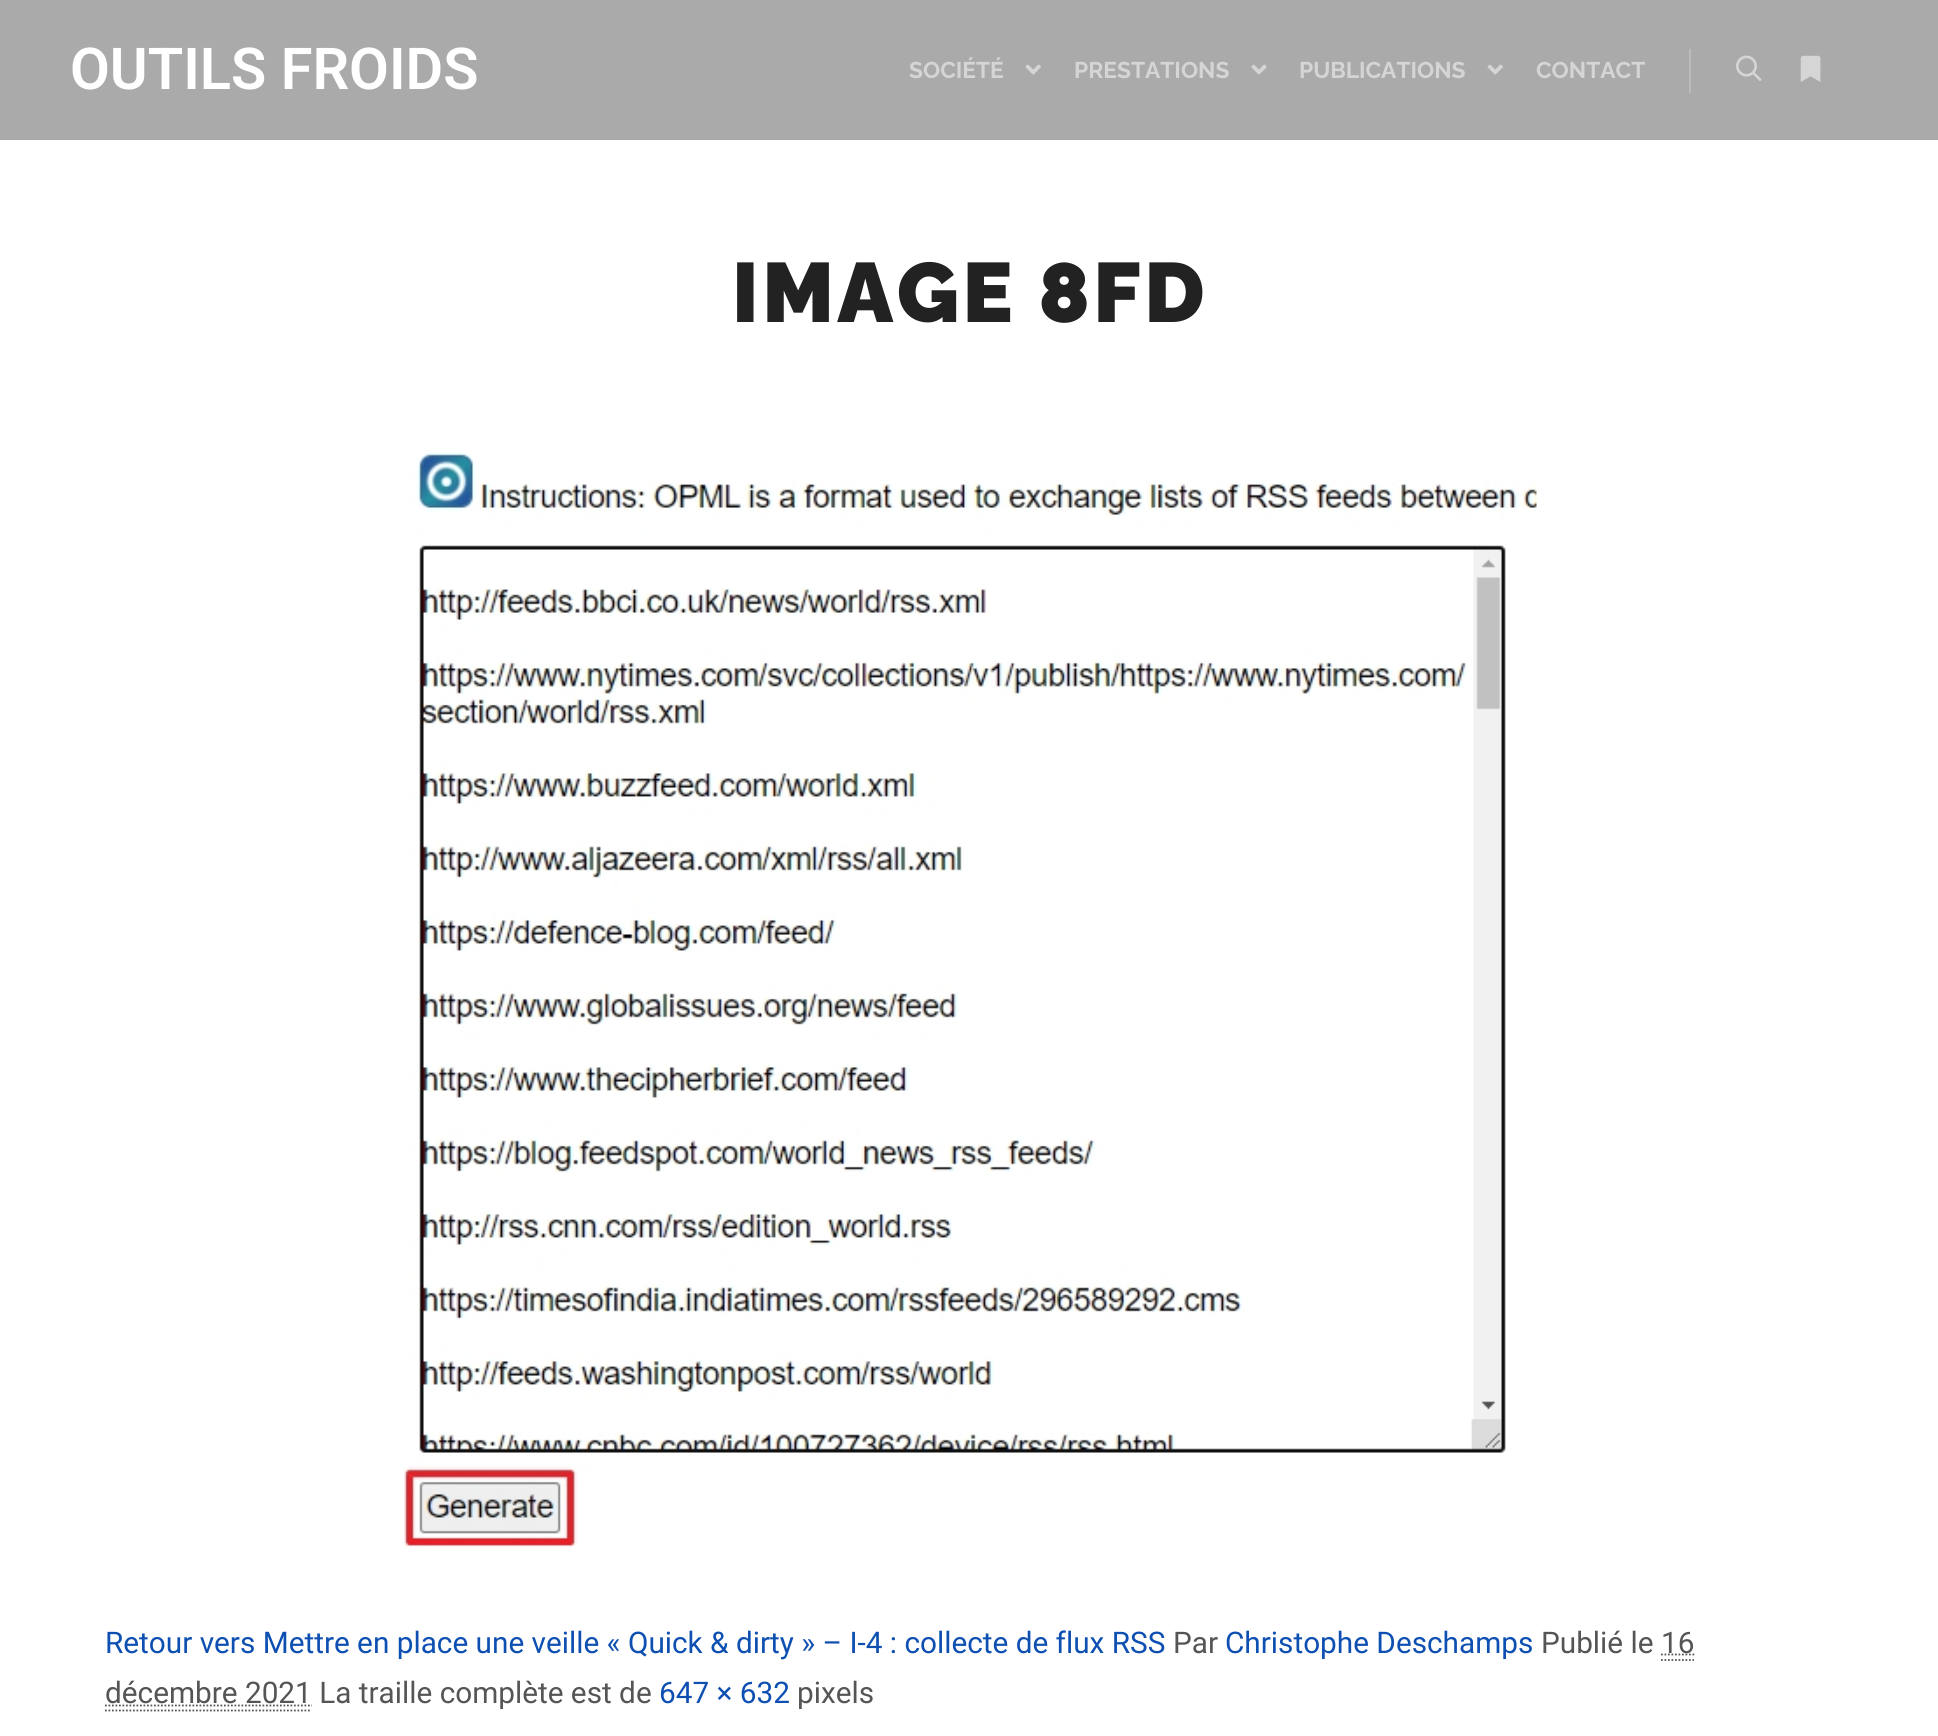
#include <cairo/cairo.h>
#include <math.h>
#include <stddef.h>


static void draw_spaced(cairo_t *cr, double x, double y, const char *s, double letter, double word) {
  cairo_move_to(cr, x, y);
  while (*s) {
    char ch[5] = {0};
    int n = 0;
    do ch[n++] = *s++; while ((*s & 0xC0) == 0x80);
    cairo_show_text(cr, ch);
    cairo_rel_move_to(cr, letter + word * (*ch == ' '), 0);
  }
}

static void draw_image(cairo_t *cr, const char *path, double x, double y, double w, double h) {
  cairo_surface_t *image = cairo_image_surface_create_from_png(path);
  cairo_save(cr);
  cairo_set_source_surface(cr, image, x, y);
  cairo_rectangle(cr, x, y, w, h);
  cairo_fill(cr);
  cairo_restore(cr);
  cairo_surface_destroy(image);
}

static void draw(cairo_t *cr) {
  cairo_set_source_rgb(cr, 1, 1, 1);
  cairo_paint(cr);
  cairo_set_source_rgb(cr, 170 / 255.0, 170 / 255.0, 170 / 255.0);
  cairo_rectangle(cr, 0, 0, 1938, 140);
  cairo_fill(cr);
  draw_image(cr, "images/1.png", 1025, 64, 16, 11);
  draw_image(cr, "images/2.png", 1251, 64, 16, 11);
  draw_image(cr, "images/1.png", 1487, 64, 16, 11);
  cairo_set_source_rgb(cr, 187 / 255.0, 187 / 255.0, 187 / 255.0);
  cairo_rectangle(cr, 1689, 49, 2, 44);
  cairo_fill(cr);
  draw_image(cr, "images/3.png", 1736, 55, 26, 26);
  draw_image(cr, "images/4.png", 1800, 55, 21, 27);
  draw_image(cr, "images/5.png", 404, 451, 1133, 1097);
  cairo_new_path(cr);
  cairo_move_to(cr, 1661, 1660);
  cairo_line_to(cr, 1694, 1660);
  cairo_set_source_rgb(cr, 85 / 255.0, 85 / 255.0, 85 / 255.0);
  cairo_set_line_width(cr, 1.8);
  cairo_set_dash(cr, (double[]){1.75, 1.75}, 2, 0);
  cairo_stroke(cr);
  cairo_new_path(cr);
  cairo_move_to(cr, 1661, 1654.5);
  cairo_line_to(cr, 1694.5, 1654.5);
  cairo_stroke(cr);
  cairo_new_path(cr);
  cairo_move_to(cr, 105, 1710.5);
  cairo_line_to(cr, 311.5, 1710.5);
  cairo_stroke(cr);
  cairo_new_path(cr);
  cairo_move_to(cr, 105, 1705.5);
  cairo_line_to(cr, 312, 1705.5);
  cairo_stroke(cr);
  cairo_select_font_face(cr, "Roboto SemiBold", CAIRO_FONT_SLANT_NORMAL, CAIRO_FONT_WEIGHT_NORMAL);
  cairo_set_font_size(cr, 57.75);
  cairo_set_source_rgb(cr, 1, 1, 1);
  cairo_move_to(cr, 70, 89);
  cairo_show_text(cr, "OUTILS FROIDS");
  cairo_select_font_face(cr, "Raleway", CAIRO_FONT_SLANT_NORMAL, CAIRO_FONT_WEIGHT_BOLD);
  cairo_set_font_size(cr, 22.75);
  cairo_set_source_rgb(cr, 213 / 255.0, 213 / 255.0, 213 / 255.0);
  cairo_move_to(cr, 909, 78);
  cairo_show_text(cr, "SOCIÉTÉ");
  cairo_move_to(cr, 1074, 78);
  cairo_show_text(cr, "PRESTATIONS");
  cairo_move_to(cr, 1299, 78);
  cairo_show_text(cr, "PUBLICATIONS");
  cairo_move_to(cr, 1536, 78);
  cairo_show_text(cr, "CONTACT");
  cairo_select_font_face(cr, "Raleway Black", CAIRO_FONT_SLANT_NORMAL, CAIRO_FONT_WEIGHT_NORMAL);
  cairo_set_font_size(cr, 84);
  cairo_set_source_rgb(cr, 34 / 255.0, 34 / 255.0, 34 / 255.0);
  draw_spaced(cr, 732, 322, "IMAGE 8FD", 3.5, 0);
  cairo_select_font_face(cr, "Roboto", CAIRO_FONT_SLANT_NORMAL, CAIRO_FONT_WEIGHT_NORMAL);
  cairo_set_font_size(cr, 29.75);
  cairo_set_source_rgb(cr, 14 / 255.0, 79 / 255.0, 178 / 255.0);
  cairo_move_to(cr, 105, 1653);
  cairo_show_text(cr, "Retour vers Mettre en place une veille « Quick & dirty » – I-4 : collecte de flux RSS");
  cairo_set_source_rgb(cr, 85 / 255.0, 85 / 255.0, 85 / 255.0);
  cairo_move_to(cr, 1173, 1653);
  cairo_show_text(cr, "Par");
  cairo_set_source_rgb(cr, 14 / 255.0, 79 / 255.0, 178 / 255.0);
  cairo_move_to(cr, 1225, 1653);
  cairo_show_text(cr, "Christophe Deschamps");
  cairo_set_source_rgb(cr, 85 / 255.0, 85 / 255.0, 85 / 255.0);
  cairo_move_to(cr, 1541, 1653);
  cairo_show_text(cr, "Publié le");
  cairo_move_to(cr, 1661, 1653);
  cairo_show_text(cr, "16");
  cairo_move_to(cr, 105, 1703);
  cairo_show_text(cr, "décembre 2021 La traille complète est de");
  cairo_set_source_rgb(cr, 14 / 255.0, 79 / 255.0, 178 / 255.0);
  cairo_move_to(cr, 659, 1703);
  cairo_show_text(cr, "647 × 632");
  cairo_set_source_rgb(cr, 85 / 255.0, 85 / 255.0, 85 / 255.0);
  cairo_move_to(cr, 797, 1703);
  cairo_show_text(cr, "pixels");
}

int main(void) {
  cairo_surface_t *surface = cairo_image_surface_create(CAIRO_FORMAT_RGB24, 1938, 1736);
  cairo_t *cr = cairo_create(surface);
  cairo_font_options_t *options = cairo_font_options_create();
  cairo_font_options_set_hint_metrics(options, CAIRO_HINT_METRICS_OFF);
  cairo_font_options_set_hint_style(options, CAIRO_HINT_STYLE_NONE);
  cairo_set_font_options(cr, options);
  cairo_set_miter_limit(cr, 4);
  draw(cr);
  cairo_surface_write_to_png(surface, "out.png");
  cairo_font_options_destroy(options);
  cairo_destroy(cr);
  cairo_surface_destroy(surface);
  return 0;
}
